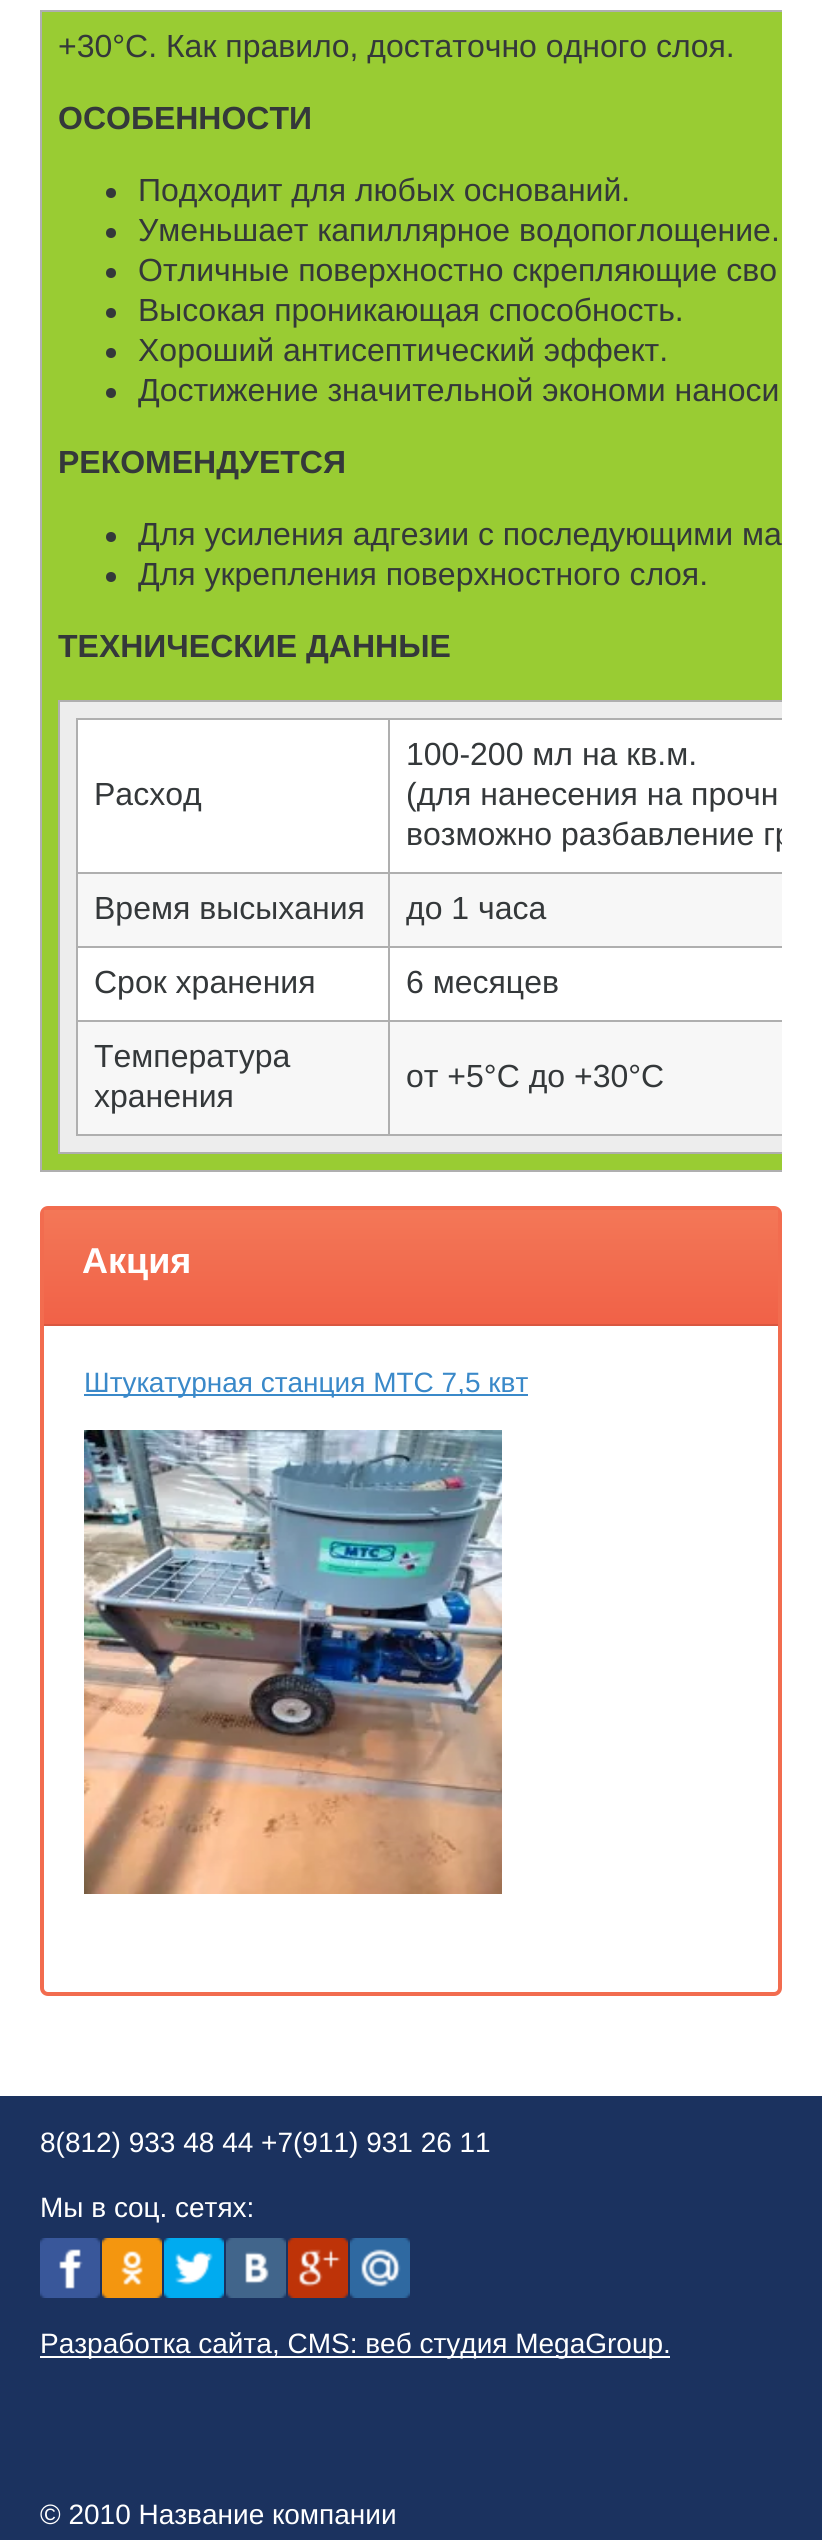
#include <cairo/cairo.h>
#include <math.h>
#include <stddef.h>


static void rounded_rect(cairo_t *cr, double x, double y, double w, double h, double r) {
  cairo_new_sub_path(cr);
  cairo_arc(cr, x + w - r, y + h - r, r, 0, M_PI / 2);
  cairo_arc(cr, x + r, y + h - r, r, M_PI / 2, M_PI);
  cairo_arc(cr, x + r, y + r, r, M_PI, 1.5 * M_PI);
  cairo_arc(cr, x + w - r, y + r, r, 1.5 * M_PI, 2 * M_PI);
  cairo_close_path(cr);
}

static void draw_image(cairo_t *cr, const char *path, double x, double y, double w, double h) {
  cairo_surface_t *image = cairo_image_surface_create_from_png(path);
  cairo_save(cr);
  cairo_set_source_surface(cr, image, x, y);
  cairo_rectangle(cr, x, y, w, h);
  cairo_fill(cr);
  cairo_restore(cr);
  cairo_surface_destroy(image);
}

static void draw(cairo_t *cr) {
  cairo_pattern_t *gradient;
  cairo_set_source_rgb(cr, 1, 1, 1);
  cairo_paint(cr);
  cairo_set_source_rgb(cr, 153 / 255.0, 204 / 255.0, 51 / 255.0);
  cairo_rectangle(cr, 42, 12, 740, 1158);
  cairo_fill(cr);
  cairo_set_source_rgb(cr, 175 / 255.0, 175 / 255.0, 175 / 255.0);
  cairo_rectangle(cr, 40, 10, 742, 2);
  cairo_fill(cr);
  cairo_rectangle(cr, 40, 1170, 742, 2);
  cairo_fill(cr);
  cairo_rectangle(cr, 40, 10, 2, 1162);
  cairo_fill(cr);
  cairo_set_source_rgb(cr, 52 / 255.0, 56 / 255.0, 58 / 255.0);
  cairo_arc(cr, 111, 193, 5, 0, 2 * M_PI);
  cairo_fill(cr);
  cairo_arc(cr, 111, 233, 5, 0, 2 * M_PI);
  cairo_fill(cr);
  cairo_arc(cr, 111, 273, 5, 0, 2 * M_PI);
  cairo_fill(cr);
  cairo_arc(cr, 111, 313, 5, 0, 2 * M_PI);
  cairo_fill(cr);
  cairo_arc(cr, 111, 353, 5, 0, 2 * M_PI);
  cairo_fill(cr);
  cairo_arc(cr, 111, 393, 5, 0, 2 * M_PI);
  cairo_fill(cr);
  cairo_arc(cr, 111, 537, 5, 0, 2 * M_PI);
  cairo_fill(cr);
  cairo_arc(cr, 111, 577, 5, 0, 2 * M_PI);
  cairo_fill(cr);
  cairo_set_source_rgb(cr, 175 / 255.0, 175 / 255.0, 175 / 255.0);
  cairo_rectangle(cr, 58, 700, 724, 2);
  cairo_fill(cr);
  cairo_rectangle(cr, 58, 1152, 724, 2);
  cairo_fill(cr);
  cairo_rectangle(cr, 58, 700, 2, 454);
  cairo_fill(cr);
  cairo_set_source_rgb(cr, 237 / 255.0, 237 / 255.0, 237 / 255.0);
  cairo_rectangle(cr, 60, 702, 722, 450);
  cairo_fill(cr);
  cairo_set_source_rgb(cr, 175 / 255.0, 175 / 255.0, 175 / 255.0);
  cairo_rectangle(cr, 76, 718, 706, 2);
  cairo_fill(cr);
  cairo_rectangle(cr, 76, 1134, 706, 2);
  cairo_fill(cr);
  cairo_rectangle(cr, 76, 718, 2, 418);
  cairo_fill(cr);
  cairo_set_source_rgb(cr, 1, 1, 1);
  cairo_rectangle(cr, 78, 720, 704, 152);
  cairo_fill(cr);
  cairo_set_source_rgb(cr, 175 / 255.0, 175 / 255.0, 175 / 255.0);
  cairo_rectangle(cr, 388, 872, 394, 2);
  cairo_fill(cr);
  cairo_set_source_rgb(cr, 247 / 255.0, 247 / 255.0, 247 / 255.0);
  cairo_rectangle(cr, 78, 874, 704, 72);
  cairo_fill(cr);
  cairo_set_source_rgb(cr, 175 / 255.0, 175 / 255.0, 175 / 255.0);
  cairo_rectangle(cr, 388, 946, 394, 2);
  cairo_fill(cr);
  cairo_set_source_rgb(cr, 1, 1, 1);
  cairo_rectangle(cr, 78, 948, 704, 72);
  cairo_fill(cr);
  cairo_set_source_rgb(cr, 175 / 255.0, 175 / 255.0, 175 / 255.0);
  cairo_rectangle(cr, 388, 1020, 394, 2);
  cairo_fill(cr);
  cairo_set_source_rgb(cr, 247 / 255.0, 247 / 255.0, 247 / 255.0);
  cairo_rectangle(cr, 78, 1022, 704, 112);
  cairo_fill(cr);
  cairo_set_source_rgb(cr, 175 / 255.0, 175 / 255.0, 175 / 255.0);
  cairo_rectangle(cr, 388, 1020, 2, 116);
  cairo_fill(cr);
  cairo_rectangle(cr, 76, 1020, 314, 2);
  cairo_fill(cr);
  cairo_rectangle(cr, 388, 946, 2, 76);
  cairo_fill(cr);
  cairo_rectangle(cr, 76, 946, 314, 2);
  cairo_fill(cr);
  cairo_rectangle(cr, 388, 872, 2, 76);
  cairo_fill(cr);
  cairo_rectangle(cr, 76, 872, 314, 2);
  cairo_fill(cr);
  cairo_rectangle(cr, 388, 718, 2, 156);
  cairo_fill(cr);
  rounded_rect(cr, 42, 1208, 738, 786, 6);
  cairo_set_source_rgb(cr, 242 / 255.0, 108 / 255.0, 79 / 255.0);
  cairo_set_line_width(cr, 4);
  cairo_stroke(cr);
  gradient = cairo_pattern_create_linear(411, 1326, 411, 1210);
  cairo_pattern_add_color_stop_rgba(gradient, 0, 241 / 255.0, 97 / 255.0, 71 / 255.0, 1);
  cairo_pattern_add_color_stop_rgba(gradient, 1, 243 / 255.0, 119 / 255.0, 87 / 255.0, 1);
  cairo_set_source(cr, gradient);
  cairo_pattern_destroy(gradient);
  cairo_rectangle(cr, 44, 1210, 734, 114);
  cairo_fill(cr);
  cairo_set_source_rgb(cr, 217 / 255.0, 87 / 255.0, 64 / 255.0);
  cairo_rectangle(cr, 44, 1324, 734, 2);
  cairo_fill(cr);
  cairo_set_source_rgb(cr, 58 / 255.0, 137 / 255.0, 201 / 255.0);
  cairo_rectangle(cr, 84, 1394, 444, 2);
  cairo_fill(cr);
  draw_image(cr, "images/1.png", 84, 1430, 418, 464);
  cairo_set_source_rgb(cr, 27 / 255.0, 50 / 255.0, 95 / 255.0);
  cairo_rectangle(cr, 0, 2096, 822, 444);
  cairo_fill(cr);
  draw_image(cr, "images/2.png", 40, 2238, 60, 60);
  draw_image(cr, "images/3.png", 102, 2238, 60, 60);
  draw_image(cr, "images/4.png", 164, 2238, 60, 60);
  draw_image(cr, "images/5.png", 226, 2238, 60, 60);
  draw_image(cr, "images/6.png", 288, 2238, 60, 60);
  draw_image(cr, "images/7.png", 350, 2238, 60, 60);
  cairo_set_source_rgb(cr, 1, 1, 1);
  cairo_rectangle(cr, 40, 2356, 630, 2);
  cairo_fill(cr);
  cairo_select_font_face(cr, "Liberation Sans", CAIRO_FONT_SLANT_NORMAL, CAIRO_FONT_WEIGHT_NORMAL);
  cairo_set_font_size(cr, 32);
  cairo_set_source_rgb(cr, 52 / 255.0, 56 / 255.0, 58 / 255.0);
  cairo_move_to(cr, 58, 57);
  cairo_show_text(cr, "+30°С. Как правило, достаточно одного слоя.");
  cairo_select_font_face(cr, "Liberation Sans", CAIRO_FONT_SLANT_NORMAL, CAIRO_FONT_WEIGHT_BOLD);
  cairo_move_to(cr, 58, 129);
  cairo_show_text(cr, "ОСОБЕННОСТИ");
  cairo_select_font_face(cr, "Liberation Sans", CAIRO_FONT_SLANT_NORMAL, CAIRO_FONT_WEIGHT_NORMAL);
  cairo_move_to(cr, 138, 201);
  cairo_show_text(cr, "Подходит для любых оснований.");
  cairo_move_to(cr, 138, 241);
  cairo_show_text(cr, "Уменьшает капиллярное водопоглощение.");
  cairo_move_to(cr, 138, 281);
  cairo_show_text(cr, "Отличные поверхностно скрепляющие сво");
  cairo_move_to(cr, 138, 321);
  cairo_show_text(cr, "Высокая проникающая способность.");
  cairo_move_to(cr, 138, 361);
  cairo_show_text(cr, "Хороший антисептический эффект.");
  cairo_move_to(cr, 138, 401);
  cairo_show_text(cr, "Достижение значительной экономи наноси");
  cairo_select_font_face(cr, "Liberation Sans", CAIRO_FONT_SLANT_NORMAL, CAIRO_FONT_WEIGHT_BOLD);
  cairo_move_to(cr, 58, 473);
  cairo_show_text(cr, "РЕКОМЕНДУЕТСЯ");
  cairo_select_font_face(cr, "Liberation Sans", CAIRO_FONT_SLANT_NORMAL, CAIRO_FONT_WEIGHT_NORMAL);
  cairo_move_to(cr, 138, 545);
  cairo_show_text(cr, "Для усиления адгезии с последующими ма");
  cairo_move_to(cr, 138, 585);
  cairo_show_text(cr, "Для укрепления поверхностного слоя.");
  cairo_select_font_face(cr, "Liberation Sans", CAIRO_FONT_SLANT_NORMAL, CAIRO_FONT_WEIGHT_BOLD);
  cairo_move_to(cr, 58, 657);
  cairo_show_text(cr, "ТЕХНИЧЕСКИЕ ДАННЫЕ");
  cairo_select_font_face(cr, "Liberation Sans", CAIRO_FONT_SLANT_NORMAL, CAIRO_FONT_WEIGHT_NORMAL);
  cairo_move_to(cr, 94, 805);
  cairo_show_text(cr, "Расход");
  cairo_move_to(cr, 406, 765);
  cairo_show_text(cr, "100-200 мл на кв.м.");
  cairo_move_to(cr, 406, 805);
  cairo_show_text(cr, "(для нанесения на прочн");
  cairo_save(cr);
  cairo_rectangle(cr, 76, 718, 706, 418);
  cairo_clip(cr);
  cairo_move_to(cr, 406, 845);
  cairo_show_text(cr, "возможно разбавление гр");
  cairo_restore(cr);
  cairo_move_to(cr, 94, 919);
  cairo_show_text(cr, "Время высыхания");
  cairo_move_to(cr, 406, 919);
  cairo_show_text(cr, "до 1 часа");
  cairo_move_to(cr, 94, 993);
  cairo_show_text(cr, "Срок хранения");
  cairo_move_to(cr, 406, 993);
  cairo_show_text(cr, "6 месяцев");
  cairo_move_to(cr, 94, 1067);
  cairo_show_text(cr, "Температура");
  cairo_move_to(cr, 94, 1107);
  cairo_show_text(cr, "хранения");
  cairo_move_to(cr, 406, 1087);
  cairo_show_text(cr, "от +5°С до +30°С");
  cairo_select_font_face(cr, "Liberation Sans", CAIRO_FONT_SLANT_NORMAL, CAIRO_FONT_WEIGHT_BOLD);
  cairo_set_font_size(cr, 36);
  cairo_set_source_rgb(cr, 1, 1, 1);
  cairo_move_to(cr, 82, 1273);
  cairo_show_text(cr, "Акция");
  cairo_select_font_face(cr, "Liberation Sans", CAIRO_FONT_SLANT_NORMAL, CAIRO_FONT_WEIGHT_NORMAL);
  cairo_set_font_size(cr, 28);
  cairo_set_source_rgb(cr, 58 / 255.0, 137 / 255.0, 201 / 255.0);
  cairo_move_to(cr, 84, 1392);
  cairo_show_text(cr, "Штукатурная станция МТС 7,5 квт");
  cairo_set_source_rgb(cr, 1, 1, 1);
  cairo_move_to(cr, 40, 2152);
  cairo_show_text(cr, "8(812) 933 48 44 +7(911) 931 26 11");
  cairo_move_to(cr, 40, 2217);
  cairo_show_text(cr, "Мы в соц. сетях:");
  cairo_move_to(cr, 40, 2353);
  cairo_show_text(cr, "Разработка сайта, CMS: веб студия MegaGroup.");
  cairo_move_to(cr, 40, 2524);
  cairo_show_text(cr, "© 2010 Название компании");
}

int main(void) {
  cairo_surface_t *surface = cairo_image_surface_create(CAIRO_FORMAT_RGB24, 822, 2540);
  cairo_t *cr = cairo_create(surface);
  cairo_font_options_t *options = cairo_font_options_create();
  cairo_font_options_set_hint_metrics(options, CAIRO_HINT_METRICS_OFF);
  cairo_font_options_set_hint_style(options, CAIRO_HINT_STYLE_NONE);
  cairo_set_font_options(cr, options);
  cairo_set_miter_limit(cr, 4);
  draw(cr);
  cairo_surface_write_to_png(surface, "out.png");
  cairo_font_options_destroy(options);
  cairo_destroy(cr);
  cairo_surface_destroy(surface);
  return 0;
}
